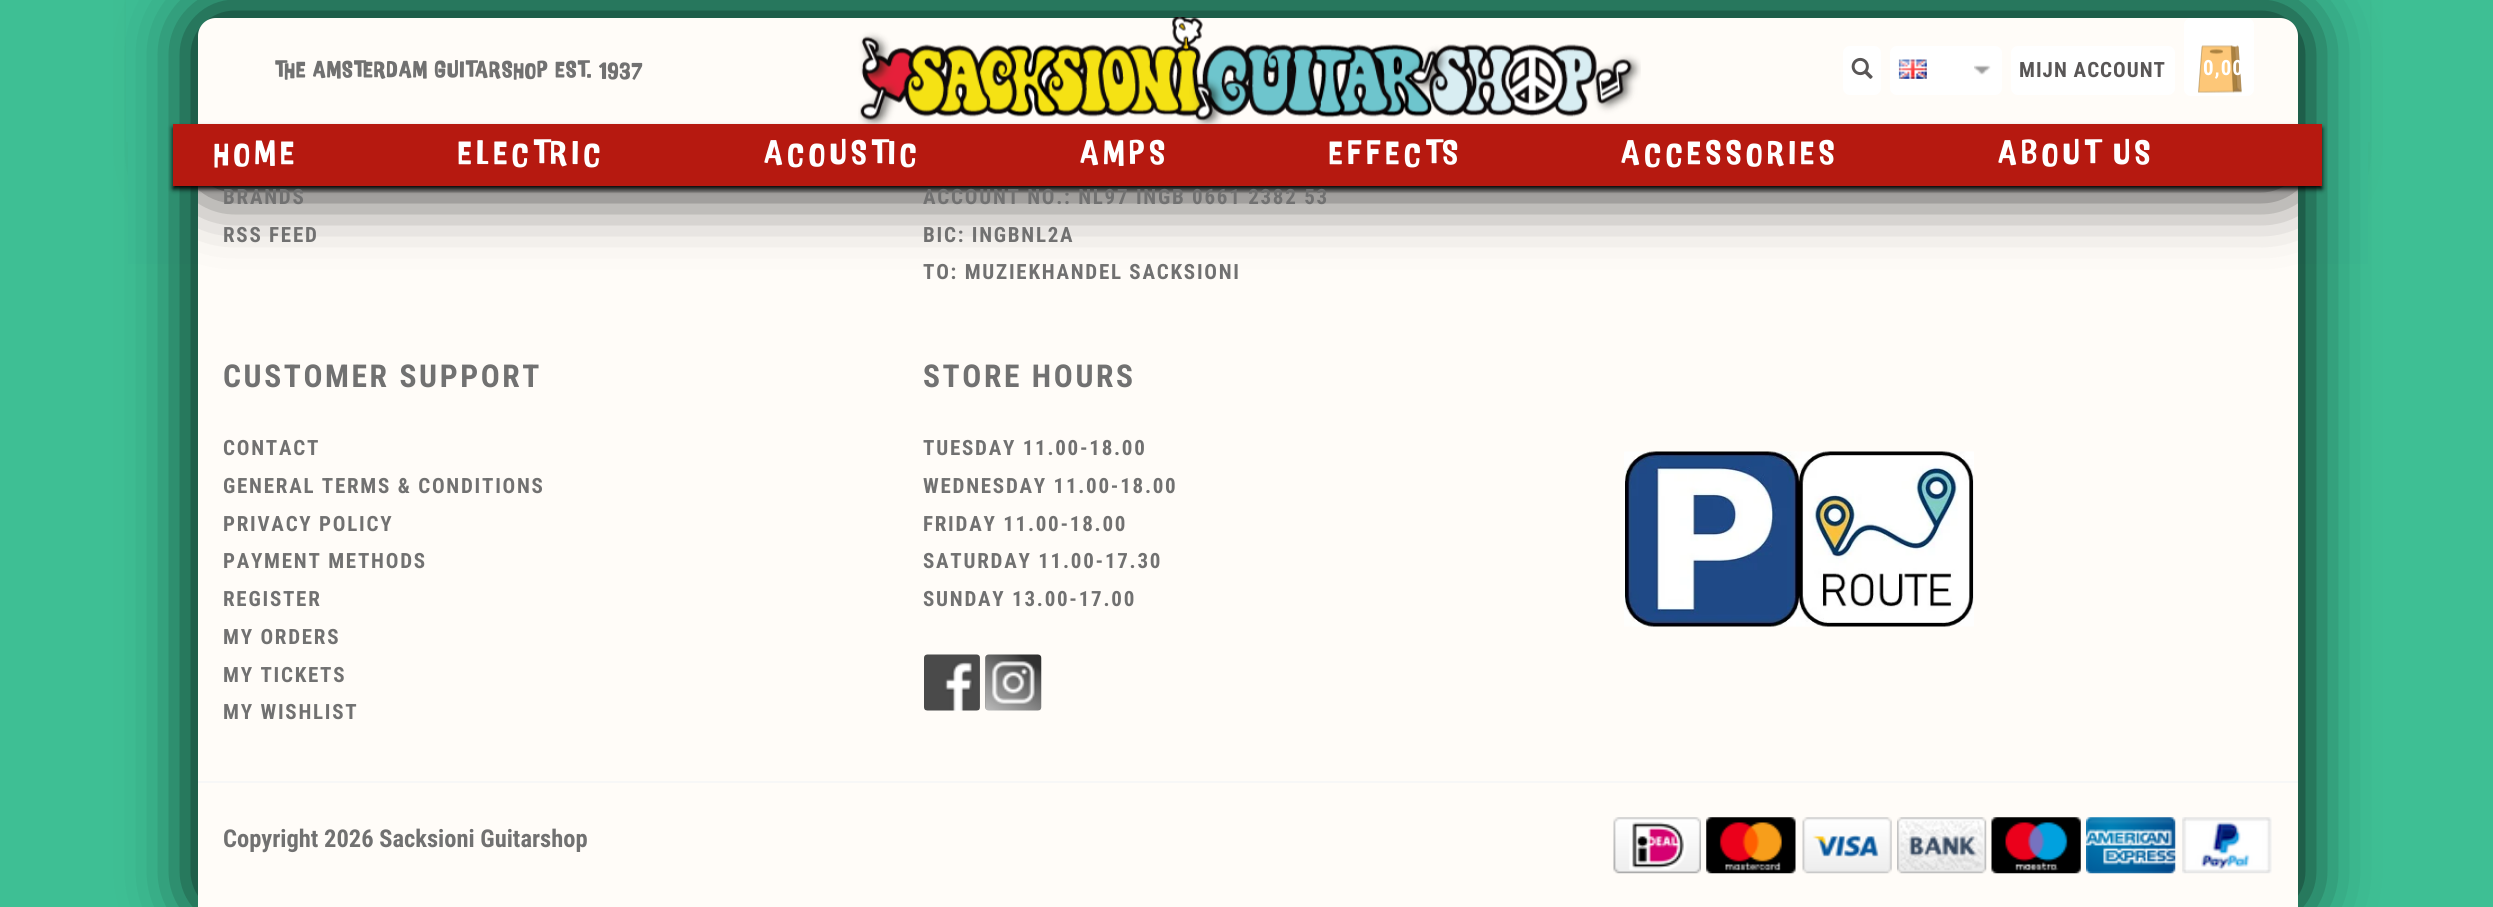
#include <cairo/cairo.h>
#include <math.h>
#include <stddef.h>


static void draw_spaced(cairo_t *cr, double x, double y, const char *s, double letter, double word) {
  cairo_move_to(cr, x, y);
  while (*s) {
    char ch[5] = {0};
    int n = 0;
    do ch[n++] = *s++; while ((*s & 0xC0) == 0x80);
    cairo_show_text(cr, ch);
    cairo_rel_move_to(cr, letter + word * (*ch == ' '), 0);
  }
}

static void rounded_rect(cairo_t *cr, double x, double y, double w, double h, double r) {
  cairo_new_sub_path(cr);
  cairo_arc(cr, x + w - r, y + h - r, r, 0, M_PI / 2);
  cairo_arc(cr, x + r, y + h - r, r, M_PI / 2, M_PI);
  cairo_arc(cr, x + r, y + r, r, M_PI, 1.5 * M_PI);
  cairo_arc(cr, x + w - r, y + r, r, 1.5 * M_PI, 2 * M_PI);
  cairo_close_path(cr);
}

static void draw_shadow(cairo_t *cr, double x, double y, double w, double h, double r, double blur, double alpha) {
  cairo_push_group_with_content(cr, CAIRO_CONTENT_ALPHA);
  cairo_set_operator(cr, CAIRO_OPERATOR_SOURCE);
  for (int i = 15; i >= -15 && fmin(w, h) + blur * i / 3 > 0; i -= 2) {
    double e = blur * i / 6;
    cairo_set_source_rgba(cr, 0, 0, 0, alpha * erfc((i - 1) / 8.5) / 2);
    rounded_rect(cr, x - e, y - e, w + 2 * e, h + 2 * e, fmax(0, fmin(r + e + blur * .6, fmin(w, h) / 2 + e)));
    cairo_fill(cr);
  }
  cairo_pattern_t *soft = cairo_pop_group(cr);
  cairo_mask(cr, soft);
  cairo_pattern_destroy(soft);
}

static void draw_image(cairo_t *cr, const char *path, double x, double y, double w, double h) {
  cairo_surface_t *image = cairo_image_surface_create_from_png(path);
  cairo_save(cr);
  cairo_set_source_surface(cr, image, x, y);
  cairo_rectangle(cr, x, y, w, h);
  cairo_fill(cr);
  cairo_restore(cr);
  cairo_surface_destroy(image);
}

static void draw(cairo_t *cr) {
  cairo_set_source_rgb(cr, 62 / 255.0, 191 / 255.0, 148 / 255.0);
  cairo_paint(cr);
  cairo_set_source_rgb(cr, 0, 0, 0);
  draw_shadow(cr, 196, -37, 2104, 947, 19, 33, 1);
  cairo_set_source_rgb(cr, 61 / 255.0, 189 / 255.0, 148 / 255.0);
  cairo_rectangle(cr, 126, 0, 2244, 142);
  cairo_fill(cr);
  cairo_set_source_rgb(cr, 1, 252 / 255.0, 248 / 255.0);
  cairo_rectangle(cr, 198, 186, 2100, 721);
  cairo_fill(cr);
  cairo_set_source_rgb(cr, 0, 0, 0);
  draw_shadow(cr, 196, 16, 2104, 171, 19, 33, 1);
  cairo_set_source_rgb(cr, 1, 252 / 255.0, 248 / 255.0);
  cairo_new_path(cr);
  cairo_move_to(cr, 216, 18);
  cairo_line_to(cr, 2280, 18);
  cairo_curve_to(cr, 2290, 18, 2298, 26, 2298, 36);
  cairo_line_to(cr, 2298, 186);
  cairo_line_to(cr, 198, 186);
  cairo_line_to(cr, 198, 36);
  cairo_curve_to(cr, 198, 26, 206, 18, 216, 18);
  cairo_close_path(cr);
  cairo_fill(cr);
  cairo_set_source_rgb(cr, 61 / 255.0, 189 / 255.0, 148 / 255.0);
  cairo_rectangle(cr, 128, 142, 70, 122);
  cairo_fill(cr);
  cairo_rectangle(cr, 2298, 142, 70, 122);
  cairo_fill(cr);
  cairo_set_source_rgb(cr, 0, 0, 0);
  draw_shadow(cr, 173, 128, 2149, 61, 0, 2.5, 1);
  draw_image(cr, "images/1.png", 858, 17, 783, 107);
  cairo_set_source_rgb(cr, 1, 1, 1);
  rounded_rect(cr, 1843, 46, 38, 49, 7);
  cairo_fill(cr);
  draw_image(cr, "images/2.png", 1851, 57, 22, 22);
  cairo_save(cr);
  cairo_rectangle(cr, 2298, 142, 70, 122);
  cairo_clip(cr);
  cairo_set_source_rgb(cr, 0, 0, 0);
  draw_shadow(cr, 2034, 70, 266, 266, 0, 33, 1);
  cairo_restore(cr);
  rounded_rect(cr, 1890, 46, 112, 49, 7);
  cairo_fill(cr);
  draw_image(cr, "images/3.png", 1974, 65, 17, 10);
  draw_image(cr, "images/4.png", 1898, 59, 29, 20);
  rounded_rect(cr, 2011, 46, 164, 49, 7);
  cairo_fill(cr);
  rounded_rect(cr, 2184, 18, 70, 78, 7);
  cairo_fill(cr);
  draw_image(cr, "images/5.png", 2198, 45, 44, 48);
  cairo_save(cr);
  cairo_rectangle(cr, 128, 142, 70, 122);
  cairo_clip(cr);
  cairo_set_source_rgb(cr, 0, 0, 0);
  draw_shadow(cr, 196, 70, 266, 266, 0, 33, 1);
  cairo_restore(cr);
  cairo_set_source_rgb(cr, 182 / 255.0, 25 / 255.0, 16 / 255.0);
  cairo_rectangle(cr, 173, 124, 2149, 62);
  cairo_fill(cr);
  draw_image(cr, "images/6.png", 924, 654, 56, 57);
  draw_image(cr, "images/7.png", 985, 654, 57, 57);
  draw_image(cr, "images/8.png", 1624, 451, 350, 176);
  cairo_set_source_rgb(cr, 247 / 255.0, 247 / 255.0, 247 / 255.0);
  cairo_rectangle(cr, 198, 781, 2100, 2);
  cairo_fill(cr);
  draw_image(cr, "images/9.png", 1613, 817, 88, 57);
  draw_image(cr, "images/10.png", 1706, 817, 90, 57);
  draw_image(cr, "images/11.png", 1802, 817, 90, 57);
  draw_image(cr, "images/12.png", 1897, 817, 90, 57);
  draw_image(cr, "images/13.png", 1991, 817, 90, 57);
  draw_image(cr, "images/14.png", 2086, 817, 90, 57);
  draw_image(cr, "images/15.png", 2182, 817, 90, 57);
  cairo_select_font_face(cr, "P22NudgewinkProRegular", CAIRO_FONT_SLANT_NORMAL, CAIRO_FONT_WEIGHT_BOLD);
  cairo_set_font_size(cr, 21);
  cairo_set_source_rgb(cr, 113 / 255.0, 113 / 255.0, 113 / 255.0);
  draw_spaced(cr, 275, 78, "THE AMSTERDAM GUITARSHOP EST. 1937", 1.75, 0);
  cairo_select_font_face(cr, "Roboto Condensed", CAIRO_FONT_SLANT_NORMAL, CAIRO_FONT_WEIGHT_BOLD);
  cairo_set_source_rgb(cr, 89 / 255.0, 86 / 255.0, 86 / 255.0);
  draw_spaced(cr, 2019, 77, "MIJN ACCOUNT", 1, 0);
  cairo_set_source_rgb(cr, 1, 1, 1);
  draw_spaced(cr, 2203, 75, "0,00", 1, 0);
  cairo_select_font_face(cr, "P22NudgewinkProRegular", CAIRO_FONT_SLANT_NORMAL, CAIRO_FONT_WEIGHT_NORMAL);
  cairo_set_font_size(cr, 31.5);
  draw_spaced(cr, 214, 165, "HOME", 5.25, 0);
  draw_spaced(cr, 458, 165, "ELECTRIC", 5.25, 0);
  draw_spaced(cr, 764, 165, "ACOUSTIC", 5.25, 0);
  draw_spaced(cr, 1080, 165, "AMPS", 5.25, 0);
  draw_spaced(cr, 1329, 165, "EFFECTS", 5.25, 0);
  draw_spaced(cr, 1621, 165, "ACCESSORIES", 5.25, 0);
  draw_spaced(cr, 1998, 165, "ABOUT US", 5.25, 0);
  cairo_select_font_face(cr, "Roboto Condensed", CAIRO_FONT_SLANT_NORMAL, CAIRO_FONT_WEIGHT_BOLD);
  cairo_set_font_size(cr, 21);
  cairo_set_source_rgb(cr, 113 / 255.0, 113 / 255.0, 113 / 255.0);
  draw_spaced(cr, 223, 204, "BRANDS", 1.75, 0);
  draw_spaced(cr, 223, 242, "RSS FEED", 1.75, 0);
  cairo_set_font_size(cr, 31.5);
  draw_spaced(cr, 223, 387, "CUSTOMER SUPPORT", 2.6, 0);
  cairo_set_font_size(cr, 21);
  draw_spaced(cr, 223, 455, "CONTACT", 1.75, 0);
  draw_spaced(cr, 223, 493, "GENERAL TERMS & CONDITIONS", 1.75, 0);
  draw_spaced(cr, 223, 531, "PRIVACY POLICY", 1.75, 0);
  draw_spaced(cr, 223, 568, "PAYMENT METHODS", 1.75, 0);
  draw_spaced(cr, 223, 606, "REGISTER", 1.75, 0);
  draw_spaced(cr, 223, 644, "MY ORDERS", 1.75, 0);
  draw_spaced(cr, 223, 682, "MY TICKETS", 1.75, 0);
  draw_spaced(cr, 223, 719, "MY WISHLIST", 1.75, 0);
  draw_spaced(cr, 923, 204, "ACCOUNT NO.: NL97 INGB 0661 2382 53", 1.75, 0);
  draw_spaced(cr, 923, 242, "BIC: INGBNL2A", 1.75, 0);
  draw_spaced(cr, 923, 279, "TO: MUZIEKHANDEL SACKSIONI", 1.75, 0);
  cairo_set_font_size(cr, 31.5);
  draw_spaced(cr, 923, 387, "STORE HOURS", 2.6, 0);
  cairo_set_font_size(cr, 21);
  draw_spaced(cr, 923, 455, "TUESDAY 11.00-18.00", 1.75, 0);
  draw_spaced(cr, 923, 493, "WEDNESDAY 11.00-18.00", 1.75, 0);
  draw_spaced(cr, 923, 531, "FRIDAY 11.00-18.00", 1.75, 0);
  draw_spaced(cr, 923, 568, "SATURDAY 11.00-17.30", 1.75, 0);
  draw_spaced(cr, 923, 606, "SUNDAY 13.00-17.00", 1.75, 0);
  cairo_set_font_size(cr, 24.5);
  cairo_move_to(cr, 223, 847);
  cairo_show_text(cr, "Copyright 2026 Sacksioni Guitarshop");
}

int main(void) {
  cairo_surface_t *surface = cairo_image_surface_create(CAIRO_FORMAT_RGB24, 2493, 907);
  cairo_t *cr = cairo_create(surface);
  cairo_font_options_t *options = cairo_font_options_create();
  cairo_font_options_set_hint_metrics(options, CAIRO_HINT_METRICS_OFF);
  cairo_font_options_set_hint_style(options, CAIRO_HINT_STYLE_NONE);
  cairo_set_font_options(cr, options);
  cairo_set_miter_limit(cr, 4);
  draw(cr);
  cairo_surface_write_to_png(surface, "out.png");
  cairo_font_options_destroy(options);
  cairo_destroy(cr);
  cairo_surface_destroy(surface);
  return 0;
}
